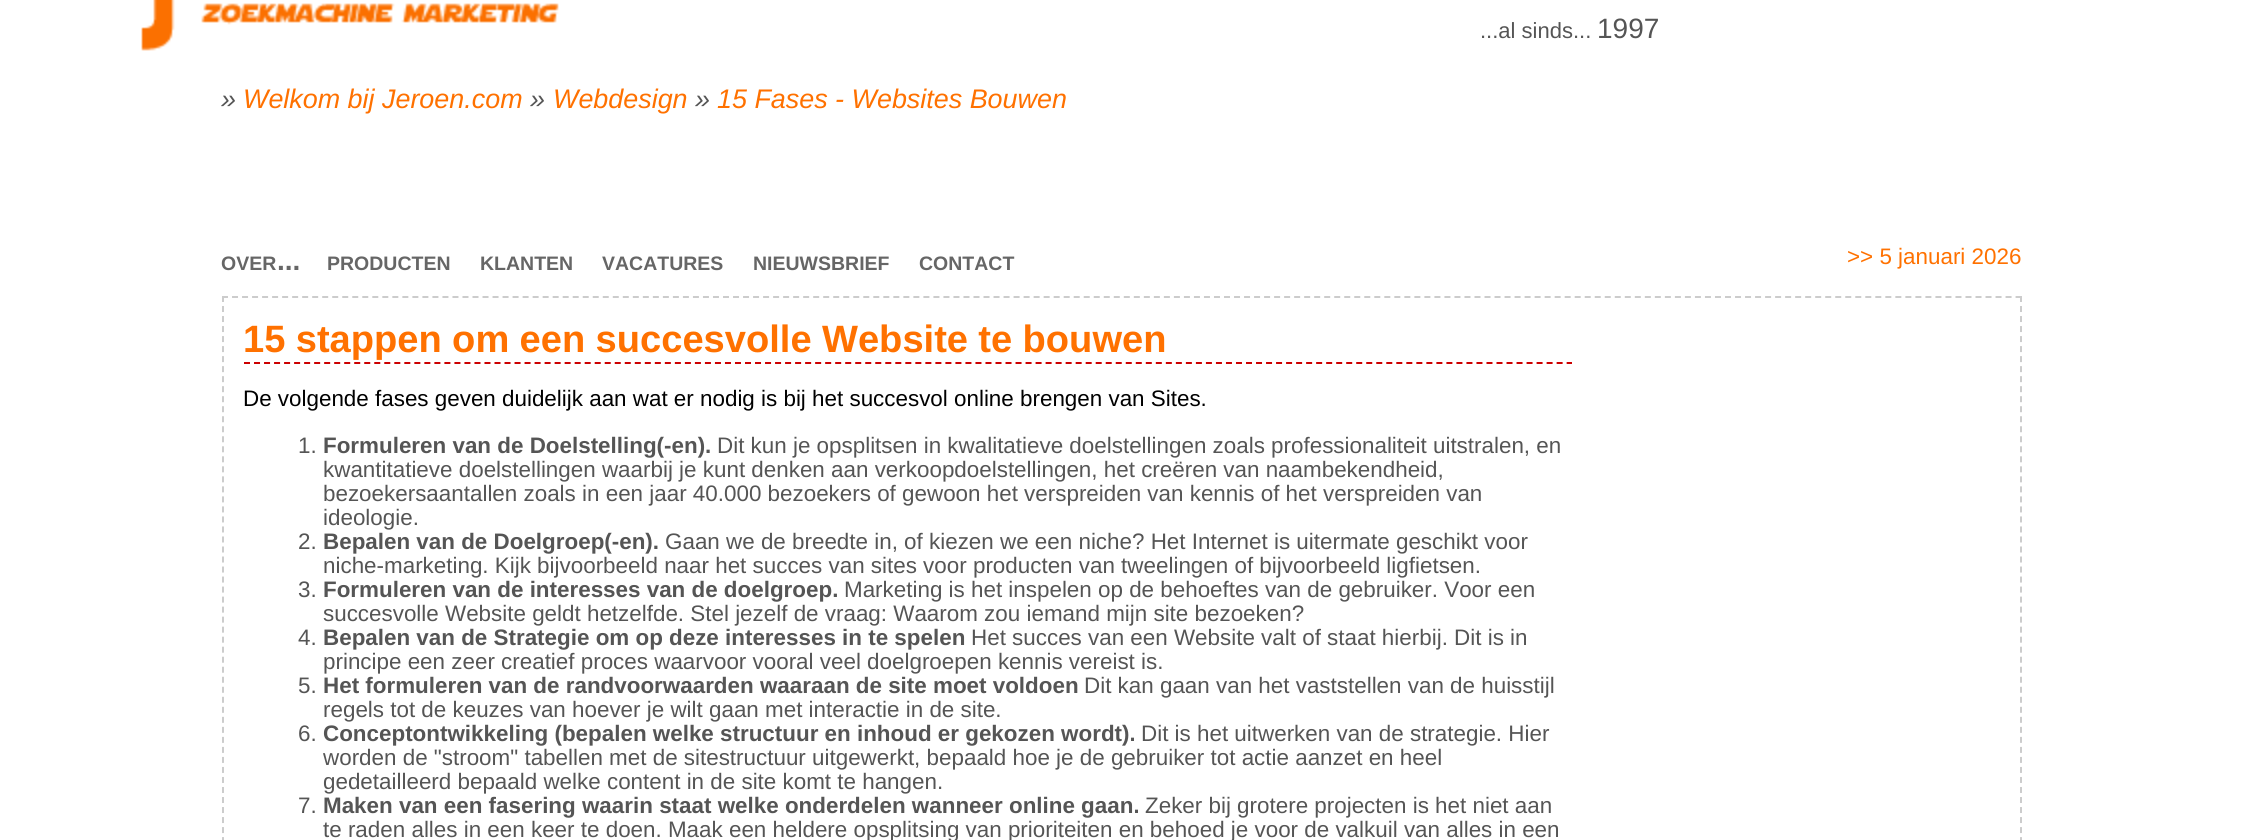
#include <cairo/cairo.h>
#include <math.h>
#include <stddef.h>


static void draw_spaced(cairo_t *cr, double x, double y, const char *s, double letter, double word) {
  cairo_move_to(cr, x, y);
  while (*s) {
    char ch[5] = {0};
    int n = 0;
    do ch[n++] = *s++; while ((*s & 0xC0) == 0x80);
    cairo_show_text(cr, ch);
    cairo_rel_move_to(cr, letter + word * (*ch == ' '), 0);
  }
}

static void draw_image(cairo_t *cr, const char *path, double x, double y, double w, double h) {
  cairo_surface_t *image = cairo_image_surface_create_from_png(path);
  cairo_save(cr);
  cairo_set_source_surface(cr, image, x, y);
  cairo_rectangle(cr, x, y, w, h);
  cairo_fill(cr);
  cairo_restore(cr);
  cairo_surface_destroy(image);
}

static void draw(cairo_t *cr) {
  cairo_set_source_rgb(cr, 1, 1, 1);
  cairo_paint(cr);
  draw_image(cr, "images/1.png", 141, 0, 418, 51);
  cairo_new_path(cr);
  cairo_move_to(cr, 222, 297);
  cairo_line_to(cr, 2022, 297);
  cairo_set_source_rgb(cr, 204 / 255.0, 204 / 255.0, 204 / 255.0);
  cairo_set_dash(cr, (double[]){6, 4.02}, 2, 0);
  cairo_stroke(cr);
  cairo_new_path(cr);
  cairo_move_to(cr, 2021, 296);
  cairo_line_to(cr, 2021, 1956);
  cairo_stroke(cr);
  cairo_new_path(cr);
  cairo_move_to(cr, 223, 296);
  cairo_line_to(cr, 223, 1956);
  cairo_stroke(cr);
  cairo_new_path(cr);
  cairo_move_to(cr, 244, 363);
  cairo_line_to(cr, 1572, 363);
  cairo_set_source_rgb(cr, 204 / 255.0, 0, 0);
  cairo_stroke(cr);
  cairo_select_font_face(cr, "Liberation Sans", CAIRO_FONT_SLANT_NORMAL, CAIRO_FONT_WEIGHT_NORMAL);
  cairo_set_font_size(cr, 22);
  cairo_set_source_rgb(cr, 85 / 255.0, 85 / 255.0, 85 / 255.0);
  cairo_move_to(cr, 1480, 38);
  cairo_show_text(cr, "...al sinds...");
  cairo_set_font_size(cr, 28);
  cairo_move_to(cr, 1597, 38);
  cairo_show_text(cr, "1997");
  cairo_select_font_face(cr, "Liberation Sans", CAIRO_FONT_SLANT_ITALIC, CAIRO_FONT_WEIGHT_NORMAL);
  cairo_set_font_size(cr, 26.9);
  cairo_move_to(cr, 221, 108);
  cairo_show_text(cr, "»");
  cairo_set_source_rgb(cr, 1, 113 / 255.0, 0);
  cairo_move_to(cr, 243, 108);
  cairo_show_text(cr, "Welkom bij Jeroen.com");
  cairo_set_source_rgb(cr, 85 / 255.0, 85 / 255.0, 85 / 255.0);
  cairo_move_to(cr, 530, 108);
  cairo_show_text(cr, "»");
  cairo_set_source_rgb(cr, 1, 113 / 255.0, 0);
  cairo_move_to(cr, 553, 108);
  cairo_show_text(cr, "Webdesign");
  cairo_set_source_rgb(cr, 85 / 255.0, 85 / 255.0, 85 / 255.0);
  cairo_move_to(cr, 695, 108);
  cairo_show_text(cr, "»");
  cairo_set_source_rgb(cr, 1, 113 / 255.0, 0);
  cairo_move_to(cr, 717, 108);
  cairo_show_text(cr, "15 Fases - Websites Bouwen");
  cairo_select_font_face(cr, "Liberation Sans", CAIRO_FONT_SLANT_NORMAL, CAIRO_FONT_WEIGHT_BOLD);
  cairo_set_font_size(cr, 19.5);
  cairo_set_source_rgb(cr, 102 / 255.0, 102 / 255.0, 102 / 255.0);
  cairo_move_to(cr, 221, 270);
  cairo_show_text(cr, "OVER");
  cairo_set_font_size(cr, 28);
  cairo_move_to(cr, 277, 270);
  cairo_show_text(cr, "...");
  cairo_set_font_size(cr, 19.5);
  cairo_move_to(cr, 327, 270);
  cairo_show_text(cr, "PRODUCTEN");
  cairo_move_to(cr, 480, 270);
  cairo_show_text(cr, "KLANTEN");
  cairo_move_to(cr, 602, 270);
  cairo_show_text(cr, "VACATURES");
  cairo_move_to(cr, 753, 270);
  cairo_show_text(cr, "NIEUWSBRIEF");
  cairo_move_to(cr, 919, 270);
  cairo_show_text(cr, "CONTACT");
  cairo_select_font_face(cr, "Liberation Sans", CAIRO_FONT_SLANT_NORMAL, CAIRO_FONT_WEIGHT_NORMAL);
  cairo_set_font_size(cr, 22.4);
  cairo_set_source_rgb(cr, 1, 113 / 255.0, 0);
  cairo_move_to(cr, 1847, 264);
  cairo_show_text(cr, ">> 5 januari 2026");
  cairo_select_font_face(cr, "Liberation Sans", CAIRO_FONT_SLANT_NORMAL, CAIRO_FONT_WEIGHT_BOLD);
  cairo_set_font_size(cr, 38.1);
  draw_spaced(cr, 243, 352, "15 stappen om een succesvolle Website te bouwen", 0, -0.25);
  cairo_select_font_face(cr, "Liberation Sans", CAIRO_FONT_SLANT_NORMAL, CAIRO_FONT_WEIGHT_NORMAL);
  cairo_set_font_size(cr, 22.4);
  cairo_set_source_rgb(cr, 0, 0, 0);
  cairo_move_to(cr, 243, 406);
  cairo_show_text(cr, "De volgende fases geven duidelijk aan wat er nodig is bij het succesvol online brengen van Sites.");
  cairo_set_source_rgb(cr, 85 / 255.0, 85 / 255.0, 85 / 255.0);
  cairo_move_to(cr, 298, 453);
  cairo_show_text(cr, "1.");
  cairo_select_font_face(cr, "Liberation Sans", CAIRO_FONT_SLANT_NORMAL, CAIRO_FONT_WEIGHT_BOLD);
  cairo_move_to(cr, 323, 453);
  cairo_show_text(cr, "Formuleren van de Doelstelling(-en).");
  cairo_select_font_face(cr, "Liberation Sans", CAIRO_FONT_SLANT_NORMAL, CAIRO_FONT_WEIGHT_NORMAL);
  cairo_move_to(cr, 717, 453);
  cairo_show_text(cr, "Dit kun je opsplitsen in kwalitatieve doelstellingen zoals professionaliteit uitstralen, en");
  cairo_move_to(cr, 323, 477);
  cairo_show_text(cr, "kwantitatieve doelstellingen waarbij je kunt denken aan verkoopdoelstellingen, het creëren van naambekendheid,");
  cairo_move_to(cr, 323, 501);
  cairo_show_text(cr, "bezoekersaantallen zoals in een jaar 40.000 bezoekers of gewoon het verspreiden van kennis of het verspreiden van");
  cairo_move_to(cr, 323, 525);
  cairo_show_text(cr, "ideologie.");
  cairo_move_to(cr, 298, 549);
  cairo_show_text(cr, "2.");
  cairo_select_font_face(cr, "Liberation Sans", CAIRO_FONT_SLANT_NORMAL, CAIRO_FONT_WEIGHT_BOLD);
  cairo_move_to(cr, 323, 549);
  cairo_show_text(cr, "Bepalen van de Doelgroep(-en).");
  cairo_select_font_face(cr, "Liberation Sans", CAIRO_FONT_SLANT_NORMAL, CAIRO_FONT_WEIGHT_NORMAL);
  cairo_move_to(cr, 665, 549);
  cairo_show_text(cr, "Gaan we de breedte in, of kiezen we een niche? Het Internet is uitermate geschikt voor");
  cairo_move_to(cr, 323, 573);
  cairo_show_text(cr, "niche-marketing. Kijk bijvoorbeeld naar het succes van sites voor producten van tweelingen of bijvoorbeeld ligfietsen.");
  cairo_move_to(cr, 298, 597);
  cairo_show_text(cr, "3.");
  cairo_select_font_face(cr, "Liberation Sans", CAIRO_FONT_SLANT_NORMAL, CAIRO_FONT_WEIGHT_BOLD);
  cairo_move_to(cr, 323, 597);
  cairo_show_text(cr, "Formuleren van de interesses van de doelgroep.");
  cairo_select_font_face(cr, "Liberation Sans", CAIRO_FONT_SLANT_NORMAL, CAIRO_FONT_WEIGHT_NORMAL);
  cairo_move_to(cr, 844, 597);
  cairo_show_text(cr, "Marketing is het inspelen op de behoeftes van de gebruiker. Voor een");
  cairo_move_to(cr, 323, 621);
  cairo_show_text(cr, "succesvolle Website geldt hetzelfde. Stel jezelf de vraag: Waarom zou iemand mijn site bezoeken?");
  cairo_move_to(cr, 298, 645);
  cairo_show_text(cr, "4.");
  cairo_select_font_face(cr, "Liberation Sans", CAIRO_FONT_SLANT_NORMAL, CAIRO_FONT_WEIGHT_BOLD);
  cairo_move_to(cr, 323, 645);
  cairo_show_text(cr, "Bepalen van de Strategie om op");
  cairo_move_to(cr, 669, 645);
  cairo_show_text(cr, "deze interesses in te spelen");
  cairo_select_font_face(cr, "Liberation Sans", CAIRO_FONT_SLANT_NORMAL, CAIRO_FONT_WEIGHT_NORMAL);
  cairo_move_to(cr, 971, 645);
  cairo_show_text(cr, "Het succes van een Website valt of staat hierbij. Dit is in");
  cairo_move_to(cr, 323, 669);
  cairo_show_text(cr, "principe een zeer creatief proces waarvoor vooral veel doelgroepen kennis vereist is.");
  cairo_move_to(cr, 298, 693);
  cairo_show_text(cr, "5.");
  cairo_select_font_face(cr, "Liberation Sans", CAIRO_FONT_SLANT_NORMAL, CAIRO_FONT_WEIGHT_BOLD);
  cairo_move_to(cr, 323, 693);
  cairo_show_text(cr, "Het formuleren van de randvoorwaarden waaraan de site moet voldoen");
  cairo_select_font_face(cr, "Liberation Sans", CAIRO_FONT_SLANT_NORMAL, CAIRO_FONT_WEIGHT_NORMAL);
  cairo_move_to(cr, 1084, 693);
  cairo_show_text(cr, "Dit kan gaan van het vaststellen van de huisstijl");
  cairo_move_to(cr, 323, 717);
  cairo_show_text(cr, "regels tot de keuzes van hoever je wilt gaan met interactie in de site.");
  cairo_move_to(cr, 298, 741);
  cairo_show_text(cr, "6.");
  cairo_select_font_face(cr, "Liberation Sans", CAIRO_FONT_SLANT_NORMAL, CAIRO_FONT_WEIGHT_BOLD);
  cairo_move_to(cr, 323, 741);
  cairo_show_text(cr, "Conceptontwikkeling (bepalen welke structuur en inhoud er gekozen wordt).");
  cairo_select_font_face(cr, "Liberation Sans", CAIRO_FONT_SLANT_NORMAL, CAIRO_FONT_WEIGHT_NORMAL);
  cairo_move_to(cr, 1141, 741);
  cairo_show_text(cr, "Dit is het uitwerken van de strategie. Hier");
  cairo_move_to(cr, 323, 765);
  cairo_show_text(cr, "worden de \"stroom\" tabellen met de sitestructuur uitgewerkt, bepaald hoe je de gebruiker tot actie aanzet en heel");
  cairo_move_to(cr, 323, 789);
  cairo_show_text(cr, "gedetailleerd bepaald welke content in de site komt te hangen.");
  cairo_move_to(cr, 298, 813);
  cairo_show_text(cr, "7.");
  cairo_select_font_face(cr, "Liberation Sans", CAIRO_FONT_SLANT_NORMAL, CAIRO_FONT_WEIGHT_BOLD);
  cairo_move_to(cr, 323, 813);
  cairo_show_text(cr, "Maken van een fasering waarin staat welke onderdelen wanneer online gaan.");
  cairo_select_font_face(cr, "Liberation Sans", CAIRO_FONT_SLANT_NORMAL, CAIRO_FONT_WEIGHT_NORMAL);
  cairo_move_to(cr, 1145, 813);
  cairo_show_text(cr, "Zeker bij grotere projecten is het niet aan");
  cairo_move_to(cr, 323, 837);
  cairo_show_text(cr, "te raden alles in een keer te doen. Maak een heldere opsplitsing van prioriteiten en behoed je voor de valkuil van alles in een");
}

int main(void) {
  cairo_surface_t *surface = cairo_image_surface_create(CAIRO_FORMAT_RGB24, 2242, 840);
  cairo_t *cr = cairo_create(surface);
  cairo_font_options_t *options = cairo_font_options_create();
  cairo_font_options_set_hint_metrics(options, CAIRO_HINT_METRICS_OFF);
  cairo_font_options_set_hint_style(options, CAIRO_HINT_STYLE_NONE);
  cairo_set_font_options(cr, options);
  cairo_set_miter_limit(cr, 4);
  draw(cr);
  cairo_surface_write_to_png(surface, "out.png");
  cairo_font_options_destroy(options);
  cairo_destroy(cr);
  cairo_surface_destroy(surface);
  return 0;
}
